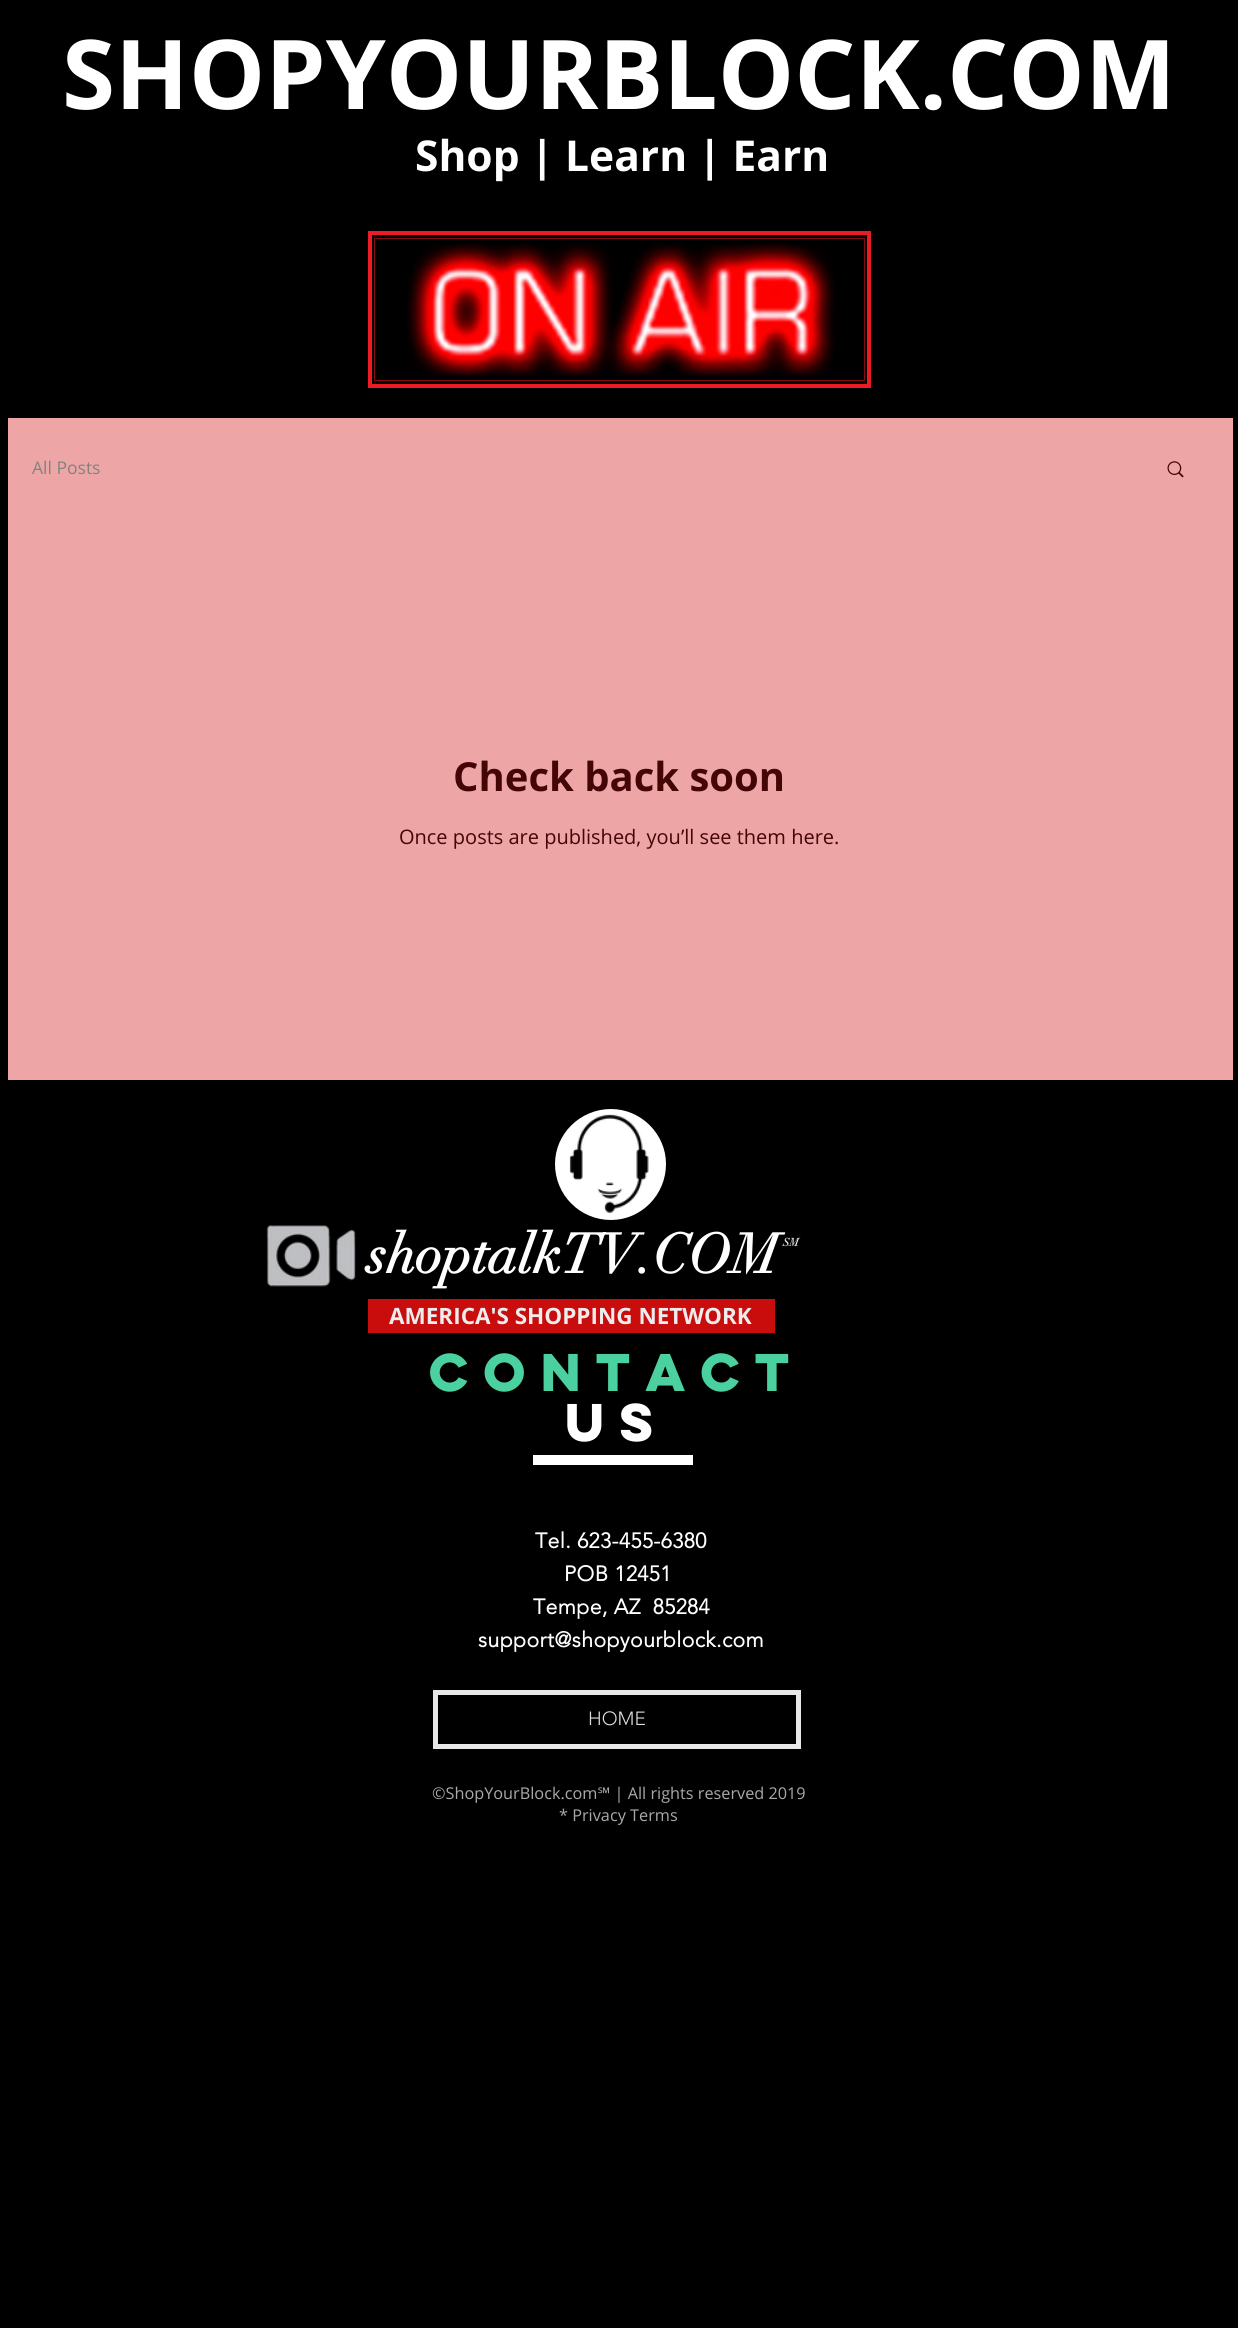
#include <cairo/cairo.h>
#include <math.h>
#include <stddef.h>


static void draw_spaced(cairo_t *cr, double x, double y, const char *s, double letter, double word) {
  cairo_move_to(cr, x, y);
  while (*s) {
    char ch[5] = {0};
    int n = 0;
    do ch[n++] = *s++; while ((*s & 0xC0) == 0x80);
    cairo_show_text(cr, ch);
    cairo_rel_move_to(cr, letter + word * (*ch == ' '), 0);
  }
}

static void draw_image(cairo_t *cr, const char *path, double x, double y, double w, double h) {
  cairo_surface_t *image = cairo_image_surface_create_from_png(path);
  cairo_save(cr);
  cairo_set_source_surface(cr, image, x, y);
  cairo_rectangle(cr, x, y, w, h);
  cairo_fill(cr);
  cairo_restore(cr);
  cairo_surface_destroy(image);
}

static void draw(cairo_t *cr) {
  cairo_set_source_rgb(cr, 0, 0, 0);
  cairo_paint(cr);
  cairo_rectangle(cr, 370, 233, 499, 153);
  cairo_set_source_rgb(cr, 237 / 255.0, 28 / 255.0, 36 / 255.0);
  cairo_set_line_width(cr, 4);
  cairo_stroke(cr);
  draw_image(cr, "images/1.png", 407, 243, 427, 133);
  cairo_rectangle(cr, 374.5, 238.5, 490, 142);
  cairo_set_source_rgb(cr, 136 / 255.0, 10 / 255.0, 12 / 255.0);
  cairo_set_line_width(cr, 1);
  cairo_stroke(cr);
  cairo_set_source_rgb(cr, 237 / 255.0, 165 / 255.0, 166 / 255.0);
  cairo_rectangle(cr, 8, 418, 1225, 662);
  cairo_fill(cr);
  draw_image(cr, "images/2.png", 1167, 461, 17, 17);
  cairo_set_source_rgb(cr, 1, 1, 1);
  cairo_new_path(cr);
  cairo_move_to(cr, 666, 1164);
  cairo_curve_to(cr, 666, 1195, 641, 1220, 611, 1220);
  cairo_curve_to(cr, 580, 1220, 555, 1195, 555, 1164);
  cairo_curve_to(cr, 555, 1134, 580, 1109, 611, 1109);
  cairo_curve_to(cr, 641, 1109, 666, 1134, 666, 1164);
  cairo_close_path(cr);
  cairo_fill(cr);
  draw_image(cr, "images/3.png", 569, 1114, 80, 100);
  draw_image(cr, "images/4.png", 266, 1225, 90, 62);
  cairo_set_source_rgb(cr, 201 / 255.0, 12 / 255.0, 12 / 255.0);
  cairo_rectangle(cr, 368, 1299, 407, 34);
  cairo_fill(cr);
  cairo_set_source_rgb(cr, 1, 1, 1);
  cairo_rectangle(cr, 533, 1455, 160, 10);
  cairo_fill(cr);
  cairo_rectangle(cr, 435.5, 1692.5, 363, 54);
  cairo_set_source_rgb(cr, 232 / 255.0, 232 / 255.0, 232 / 255.0);
  cairo_set_line_width(cr, 5);
  cairo_stroke(cr);
  cairo_select_font_face(cr, "Open Sans", CAIRO_FONT_SLANT_NORMAL, CAIRO_FONT_WEIGHT_BOLD);
  cairo_set_font_size(cr, 96.25);
  cairo_set_source_rgb(cr, 1, 1, 1);
  cairo_move_to(cr, 62, 109);
  cairo_show_text(cr, "SHOPYOURBLOCK.COM");
  cairo_set_font_size(cr, 42.5);
  cairo_move_to(cr, 415, 171);
  cairo_show_text(cr, "Shop | Learn | Earn");
  cairo_select_font_face(cr, "Open Sans", CAIRO_FONT_SLANT_NORMAL, CAIRO_FONT_WEIGHT_NORMAL);
  cairo_set_font_size(cr, 17.5);
  cairo_set_source_rgb(cr, 130 / 255.0, 130 / 255.0, 130 / 255.0);
  cairo_move_to(cr, 32, 474);
  cairo_show_text(cr, "All Posts");
  cairo_select_font_face(cr, "Open Sans", CAIRO_FONT_SLANT_NORMAL, CAIRO_FONT_WEIGHT_BOLD);
  cairo_set_font_size(cr, 40);
  cairo_set_source_rgb(cr, 68 / 255.0, 5 / 255.0, 6 / 255.0);
  cairo_move_to(cr, 453, 791);
  cairo_show_text(cr, "Check back soon");
  cairo_select_font_face(cr, "Open Sans", CAIRO_FONT_SLANT_NORMAL, CAIRO_FONT_WEIGHT_NORMAL);
  cairo_set_font_size(cr, 20);
  cairo_move_to(cr, 399, 844);
  cairo_show_text(cr, "Once posts are published, you’ll see them here.");
  cairo_select_font_face(cr, "didot", CAIRO_FONT_SLANT_NORMAL, CAIRO_FONT_WEIGHT_BOLD);
  cairo_set_font_size(cr, 55);
  cairo_set_source_rgb(cr, 1, 1, 1);
  cairo_move_to(cr, 367, 1273);
  cairo_show_text(cr, "shoptalkTV.COM");
  cairo_set_font_size(cr, 11);
  cairo_set_source_rgb(cr, 237 / 255.0, 237 / 255.0, 237 / 255.0);
  cairo_move_to(cr, 783, 1246);
  cairo_show_text(cr, "SM");
  cairo_select_font_face(cr, "Open Sans", CAIRO_FONT_SLANT_NORMAL, CAIRO_FONT_WEIGHT_BOLD);
  cairo_set_font_size(cr, 22.5);
  cairo_move_to(cr, 389, 1324);
  cairo_show_text(cr, "AMERICA'S SHOPPING NETWORK");
  cairo_select_font_face(cr, "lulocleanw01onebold", CAIRO_FONT_SLANT_NORMAL, CAIRO_FONT_WEIGHT_BOLD);
  cairo_set_font_size(cr, 47.5);
  cairo_set_source_rgb(cr, 75 / 255.0, 209 / 255.0, 160 / 255.0);
  draw_spaced(cr, 429, 1391, "CONTACT", 4.75, 0);
  cairo_set_source_rgb(cr, 1, 1, 1);
  draw_spaced(cr, 565, 1441, "US", 4.75, 0);
  cairo_select_font_face(cr, "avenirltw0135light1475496", CAIRO_FONT_SLANT_NORMAL, CAIRO_FONT_WEIGHT_BOLD);
  cairo_set_font_size(cr, 21.25);
  draw_spaced(cr, 535, 1548, "Tel. 623-455-6380", 0.4, 0);
  draw_spaced(cr, 564, 1581, "POB 12451", 0.4, 0);
  draw_spaced(cr, 533, 1614, "Tempe, AZ  85284", 0.4, 0);
  draw_spaced(cr, 478, 1647, "support@shopyourblock.com", 0.4, 0);
  cairo_select_font_face(cr, "avenirltw0135light1475496 Light", CAIRO_FONT_SLANT_NORMAL, CAIRO_FONT_WEIGHT_NORMAL);
  cairo_set_font_size(cr, 19);
  cairo_set_source_rgb(cr, 222 / 255.0, 222 / 255.0, 222 / 255.0);
  cairo_move_to(cr, 588, 1725);
  cairo_show_text(cr, "HOME");
  cairo_select_font_face(cr, "Open Sans", CAIRO_FONT_SLANT_NORMAL, CAIRO_FONT_WEIGHT_NORMAL);
  cairo_set_font_size(cr, 16.25);
  cairo_set_source_rgb(cr, 169 / 255.0, 169 / 255.0, 169 / 255.0);
  cairo_move_to(cr, 432, 1799);
  cairo_show_text(cr, "©ShopYourBlock.com℠ | All rights reserved 2019");
  cairo_move_to(cr, 559, 1821);
  cairo_show_text(cr, "* Privacy Terms");
}

int main(void) {
  cairo_surface_t *surface = cairo_image_surface_create(CAIRO_FORMAT_RGB24, 1238, 2328);
  cairo_t *cr = cairo_create(surface);
  cairo_font_options_t *options = cairo_font_options_create();
  cairo_font_options_set_hint_metrics(options, CAIRO_HINT_METRICS_OFF);
  cairo_font_options_set_hint_style(options, CAIRO_HINT_STYLE_NONE);
  cairo_set_font_options(cr, options);
  cairo_set_miter_limit(cr, 4);
  draw(cr);
  cairo_surface_write_to_png(surface, "out.png");
  cairo_font_options_destroy(options);
  cairo_destroy(cr);
  cairo_surface_destroy(surface);
  return 0;
}
